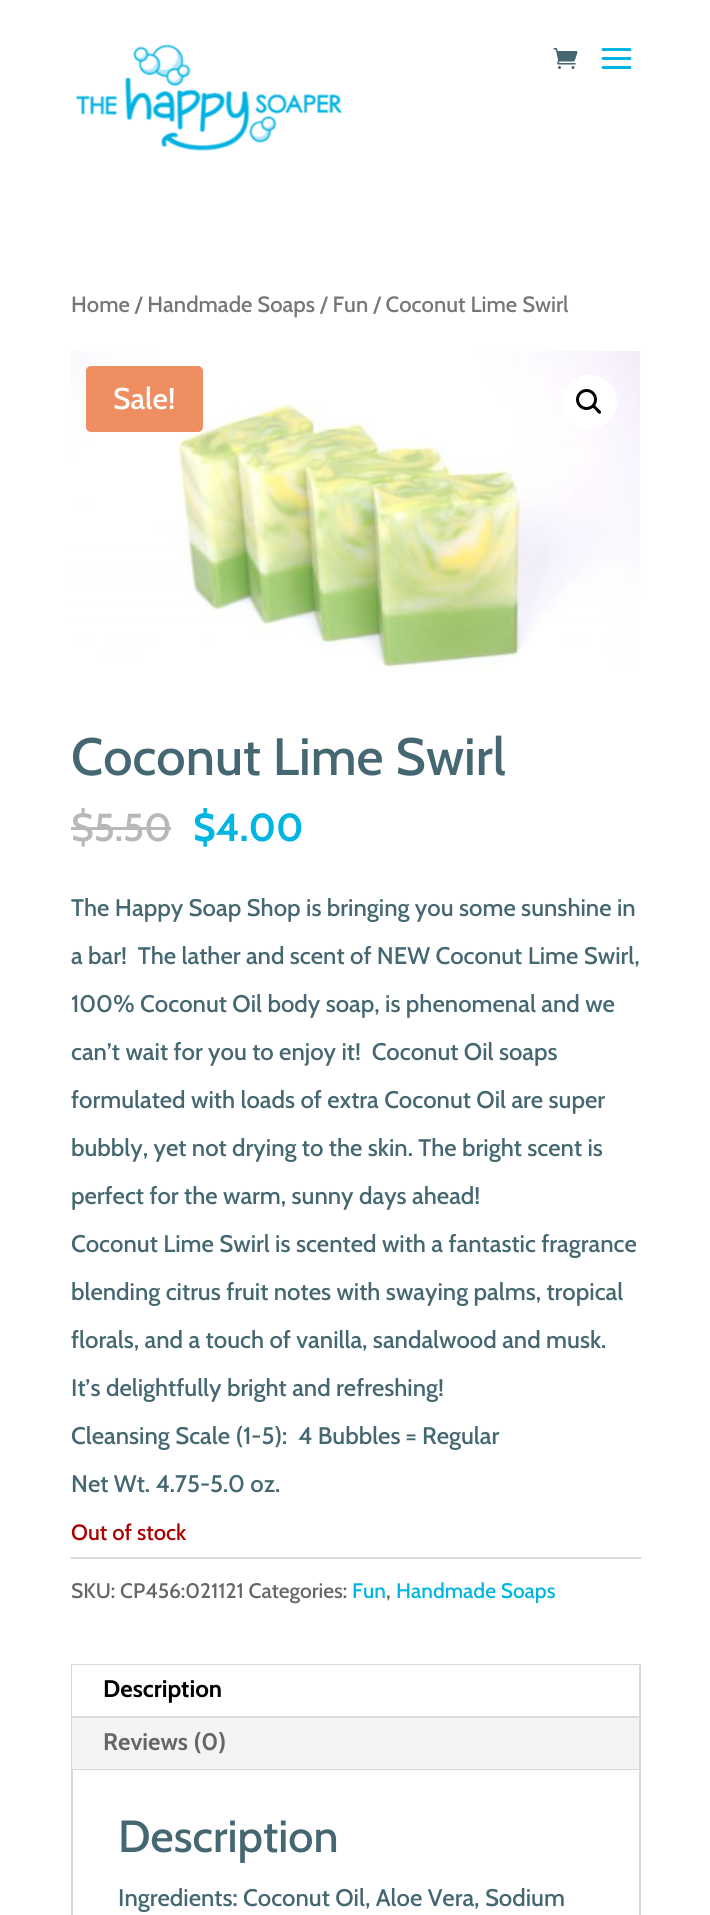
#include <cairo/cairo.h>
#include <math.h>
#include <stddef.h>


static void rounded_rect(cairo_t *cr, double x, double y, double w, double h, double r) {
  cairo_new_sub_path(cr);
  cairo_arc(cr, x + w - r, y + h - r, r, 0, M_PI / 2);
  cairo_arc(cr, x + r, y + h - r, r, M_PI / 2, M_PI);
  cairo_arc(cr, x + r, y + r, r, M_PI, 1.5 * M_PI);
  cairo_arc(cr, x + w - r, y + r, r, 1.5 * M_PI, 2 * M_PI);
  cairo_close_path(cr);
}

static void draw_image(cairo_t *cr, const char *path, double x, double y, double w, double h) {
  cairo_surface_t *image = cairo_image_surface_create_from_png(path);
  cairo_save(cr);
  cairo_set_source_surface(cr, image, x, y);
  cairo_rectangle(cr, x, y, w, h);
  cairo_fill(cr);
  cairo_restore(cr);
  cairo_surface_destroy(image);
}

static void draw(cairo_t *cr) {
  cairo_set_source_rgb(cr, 1, 1, 1);
  cairo_paint(cr);
  draw_image(cr, "images/1.png", 76, 44, 267, 107);
  draw_image(cr, "images/2.png", 553, 48, 25, 21);
  draw_image(cr, "images/3.png", 601, 48, 31, 21);
  draw_image(cr, "images/4.png", 71, 351, 570, 321);
  cairo_set_source_rgb(cr, 1, 1, 1);
  cairo_arc(cr, 590, 402, 27, 0, 2 * M_PI);
  cairo_fill(cr);
  cairo_arc(cr, 586.5, 399.5, 9, 0, 2 * M_PI);
  cairo_set_source_rgb(cr, 0, 0, 0);
  cairo_set_line_width(cr, 3);
  cairo_stroke(cr);
  cairo_new_path(cr);
  cairo_move_to(cr, 592, 405);
  cairo_curve_to(cr, 594, 403, 596.5, 407, 597.5, 408);
  cairo_curve_to(cr, 598.5, 409, 602.5, 411.5, 600.5, 413.5);
  cairo_curve_to(cr, 599, 415, 596, 411, 595.5, 410);
  cairo_curve_to(cr, 594.5, 409, 590.5, 406.5, 592, 405);
  cairo_close_path(cr);
  cairo_fill(cr);
  cairo_set_source_rgb(cr, 239 / 255.0, 143 / 255.0, 97 / 255.0);
  rounded_rect(cr, 86, 366, 117, 66, 5);
  cairo_fill(cr);
  cairo_set_source_rgb(cr, 184 / 255.0, 184 / 255.0, 184 / 255.0);
  cairo_rectangle(cr, 71, 827, 100, 3);
  cairo_fill(cr);
  cairo_set_source_rgb(cr, 218 / 255.0, 218 / 255.0, 218 / 255.0);
  cairo_rectangle(cr, 71, 1557, 570, 2);
  cairo_fill(cr);
  cairo_rectangle(cr, 72, 1665, 568, 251);
  cairo_set_source_rgb(cr, 217 / 255.0, 217 / 255.0, 217 / 255.0);
  cairo_set_line_width(cr, 2);
  cairo_stroke(cr);
  cairo_set_source_rgb(cr, 244 / 255.0, 244 / 255.0, 244 / 255.0);
  cairo_rectangle(cr, 72, 1718, 567, 51);
  cairo_fill(cr);
  cairo_set_source_rgb(cr, 1, 1, 1);
  cairo_rectangle(cr, 72, 1665, 567, 51);
  cairo_fill(cr);
  cairo_set_source_rgb(cr, 224 / 255.0, 218 / 255.0, 223 / 255.0);
  cairo_rectangle(cr, 72, 1716, 567, 2);
  cairo_fill(cr);
  cairo_set_source_rgb(cr, 217 / 255.0, 217 / 255.0, 217 / 255.0);
  cairo_rectangle(cr, 72, 1769, 567, 1);
  cairo_fill(cr);
  cairo_select_font_face(cr, "Cabin Medium", CAIRO_FONT_SLANT_NORMAL, CAIRO_FONT_WEIGHT_NORMAL);
  cairo_set_font_size(cr, 22.1);
  cairo_set_source_rgb(cr, 118 / 255.0, 118 / 255.0, 118 / 255.0);
  cairo_move_to(cr, 71, 312);
  cairo_show_text(cr, "Home / Handmade Soaps / Fun / Coconut Lime Swirl");
  cairo_set_font_size(cr, 30);
  cairo_set_source_rgb(cr, 1, 1, 1);
  cairo_move_to(cr, 113, 409);
  cairo_show_text(cr, "Sale!");
  cairo_set_font_size(cr, 52.5);
  cairo_set_source_rgb(cr, 68 / 255.0, 103 / 255.0, 113 / 255.0);
  cairo_move_to(cr, 71, 775);
  cairo_show_text(cr, "Coconut Lime Swirl");
  cairo_set_font_size(cr, 39);
  cairo_set_source_rgb(cr, 184 / 255.0, 184 / 255.0, 184 / 255.0);
  cairo_move_to(cr, 71, 841);
  cairo_show_text(cr, "$5.50");
  cairo_select_font_face(cr, "Cabin", CAIRO_FONT_SLANT_NORMAL, CAIRO_FONT_WEIGHT_BOLD);
  cairo_set_source_rgb(cr, 0, 181 / 255.0, 226 / 255.0);
  cairo_move_to(cr, 193, 841);
  cairo_show_text(cr, "$4.00");
  cairo_select_font_face(cr, "Cabin Medium", CAIRO_FONT_SLANT_NORMAL, CAIRO_FONT_WEIGHT_NORMAL);
  cairo_set_font_size(cr, 24);
  cairo_set_source_rgb(cr, 68 / 255.0, 103 / 255.0, 113 / 255.0);
  cairo_move_to(cr, 71, 916);
  cairo_show_text(cr, "The Happy Soap Shop is bringing you some sunshine in");
  cairo_move_to(cr, 71, 964);
  cairo_show_text(cr, "a bar!  The lather and scent of NEW Coconut Lime Swirl,");
  cairo_move_to(cr, 71, 1012);
  cairo_show_text(cr, "100% Coconut Oil body soap, is phenomenal and we");
  cairo_move_to(cr, 71, 1060);
  cairo_show_text(cr, "can’t wait for you to enjoy it!  Coconut Oil soaps");
  cairo_move_to(cr, 71, 1108);
  cairo_show_text(cr, "formulated with loads of extra Coconut Oil are super");
  cairo_move_to(cr, 71, 1156);
  cairo_show_text(cr, "bubbly, yet not drying to the skin. The bright scent is");
  cairo_move_to(cr, 71, 1204);
  cairo_show_text(cr, "perfect for the warm, sunny days ahead!");
  cairo_move_to(cr, 71, 1252);
  cairo_show_text(cr, "Coconut Lime Swirl is scented with a fantastic fragrance");
  cairo_move_to(cr, 71, 1300);
  cairo_show_text(cr, "blending citrus fruit notes with swaying palms, tropical");
  cairo_move_to(cr, 71, 1348);
  cairo_show_text(cr, "florals, and a touch of vanilla, sandalwood and musk.");
  cairo_move_to(cr, 71, 1396);
  cairo_show_text(cr, "It’s delightfully bright and refreshing!");
  cairo_move_to(cr, 71, 1444);
  cairo_show_text(cr, "Cleansing Scale (1-5):  4 Bubbles = Regular");
  cairo_move_to(cr, 71, 1492);
  cairo_show_text(cr, "Net Wt. 4.75-5.0 oz.");
  cairo_set_font_size(cr, 22.1);
  cairo_set_source_rgb(cr, 170 / 255.0, 0, 0);
  cairo_move_to(cr, 71, 1540);
  cairo_show_text(cr, "Out of stock");
  cairo_set_font_size(cr, 21);
  cairo_set_source_rgb(cr, 102 / 255.0, 102 / 255.0, 102 / 255.0);
  cairo_move_to(cr, 71, 1598);
  cairo_show_text(cr, "SKU: CP456:021121 Categories:");
  cairo_set_source_rgb(cr, 0, 181 / 255.0, 226 / 255.0);
  cairo_move_to(cr, 352, 1598);
  cairo_show_text(cr, "Fun");
  cairo_set_source_rgb(cr, 102 / 255.0, 102 / 255.0, 102 / 255.0);
  cairo_move_to(cr, 386, 1598);
  cairo_show_text(cr, ",");
  cairo_set_source_rgb(cr, 0, 181 / 255.0, 226 / 255.0);
  cairo_move_to(cr, 396, 1598);
  cairo_show_text(cr, "Handmade Soaps");
  cairo_select_font_face(cr, "Cabin", CAIRO_FONT_SLANT_NORMAL, CAIRO_FONT_WEIGHT_BOLD);
  cairo_set_font_size(cr, 24);
  cairo_set_source_rgb(cr, 0, 0, 0);
  cairo_move_to(cr, 103, 1697);
  cairo_show_text(cr, "Description");
  cairo_set_source_rgb(cr, 102 / 255.0, 102 / 255.0, 102 / 255.0);
  cairo_move_to(cr, 103, 1750);
  cairo_show_text(cr, "Reviews (0)");
  cairo_select_font_face(cr, "Cabin Medium", CAIRO_FONT_SLANT_NORMAL, CAIRO_FONT_WEIGHT_NORMAL);
  cairo_set_font_size(cr, 45);
  cairo_set_source_rgb(cr, 68 / 255.0, 103 / 255.0, 113 / 255.0);
  cairo_move_to(cr, 118, 1852);
  cairo_show_text(cr, "Description");
  cairo_set_font_size(cr, 24);
  cairo_move_to(cr, 118, 1906);
  cairo_show_text(cr, "Ingredients: Coconut Oil, Aloe Vera, Sodium");
}

int main(void) {
  cairo_surface_t *surface = cairo_image_surface_create(CAIRO_FORMAT_RGB24, 710, 1915);
  cairo_t *cr = cairo_create(surface);
  cairo_font_options_t *options = cairo_font_options_create();
  cairo_font_options_set_hint_metrics(options, CAIRO_HINT_METRICS_OFF);
  cairo_font_options_set_hint_style(options, CAIRO_HINT_STYLE_NONE);
  cairo_set_font_options(cr, options);
  cairo_set_miter_limit(cr, 4);
  draw(cr);
  cairo_surface_write_to_png(surface, "out.png");
  cairo_font_options_destroy(options);
  cairo_destroy(cr);
  cairo_surface_destroy(surface);
  return 0;
}
